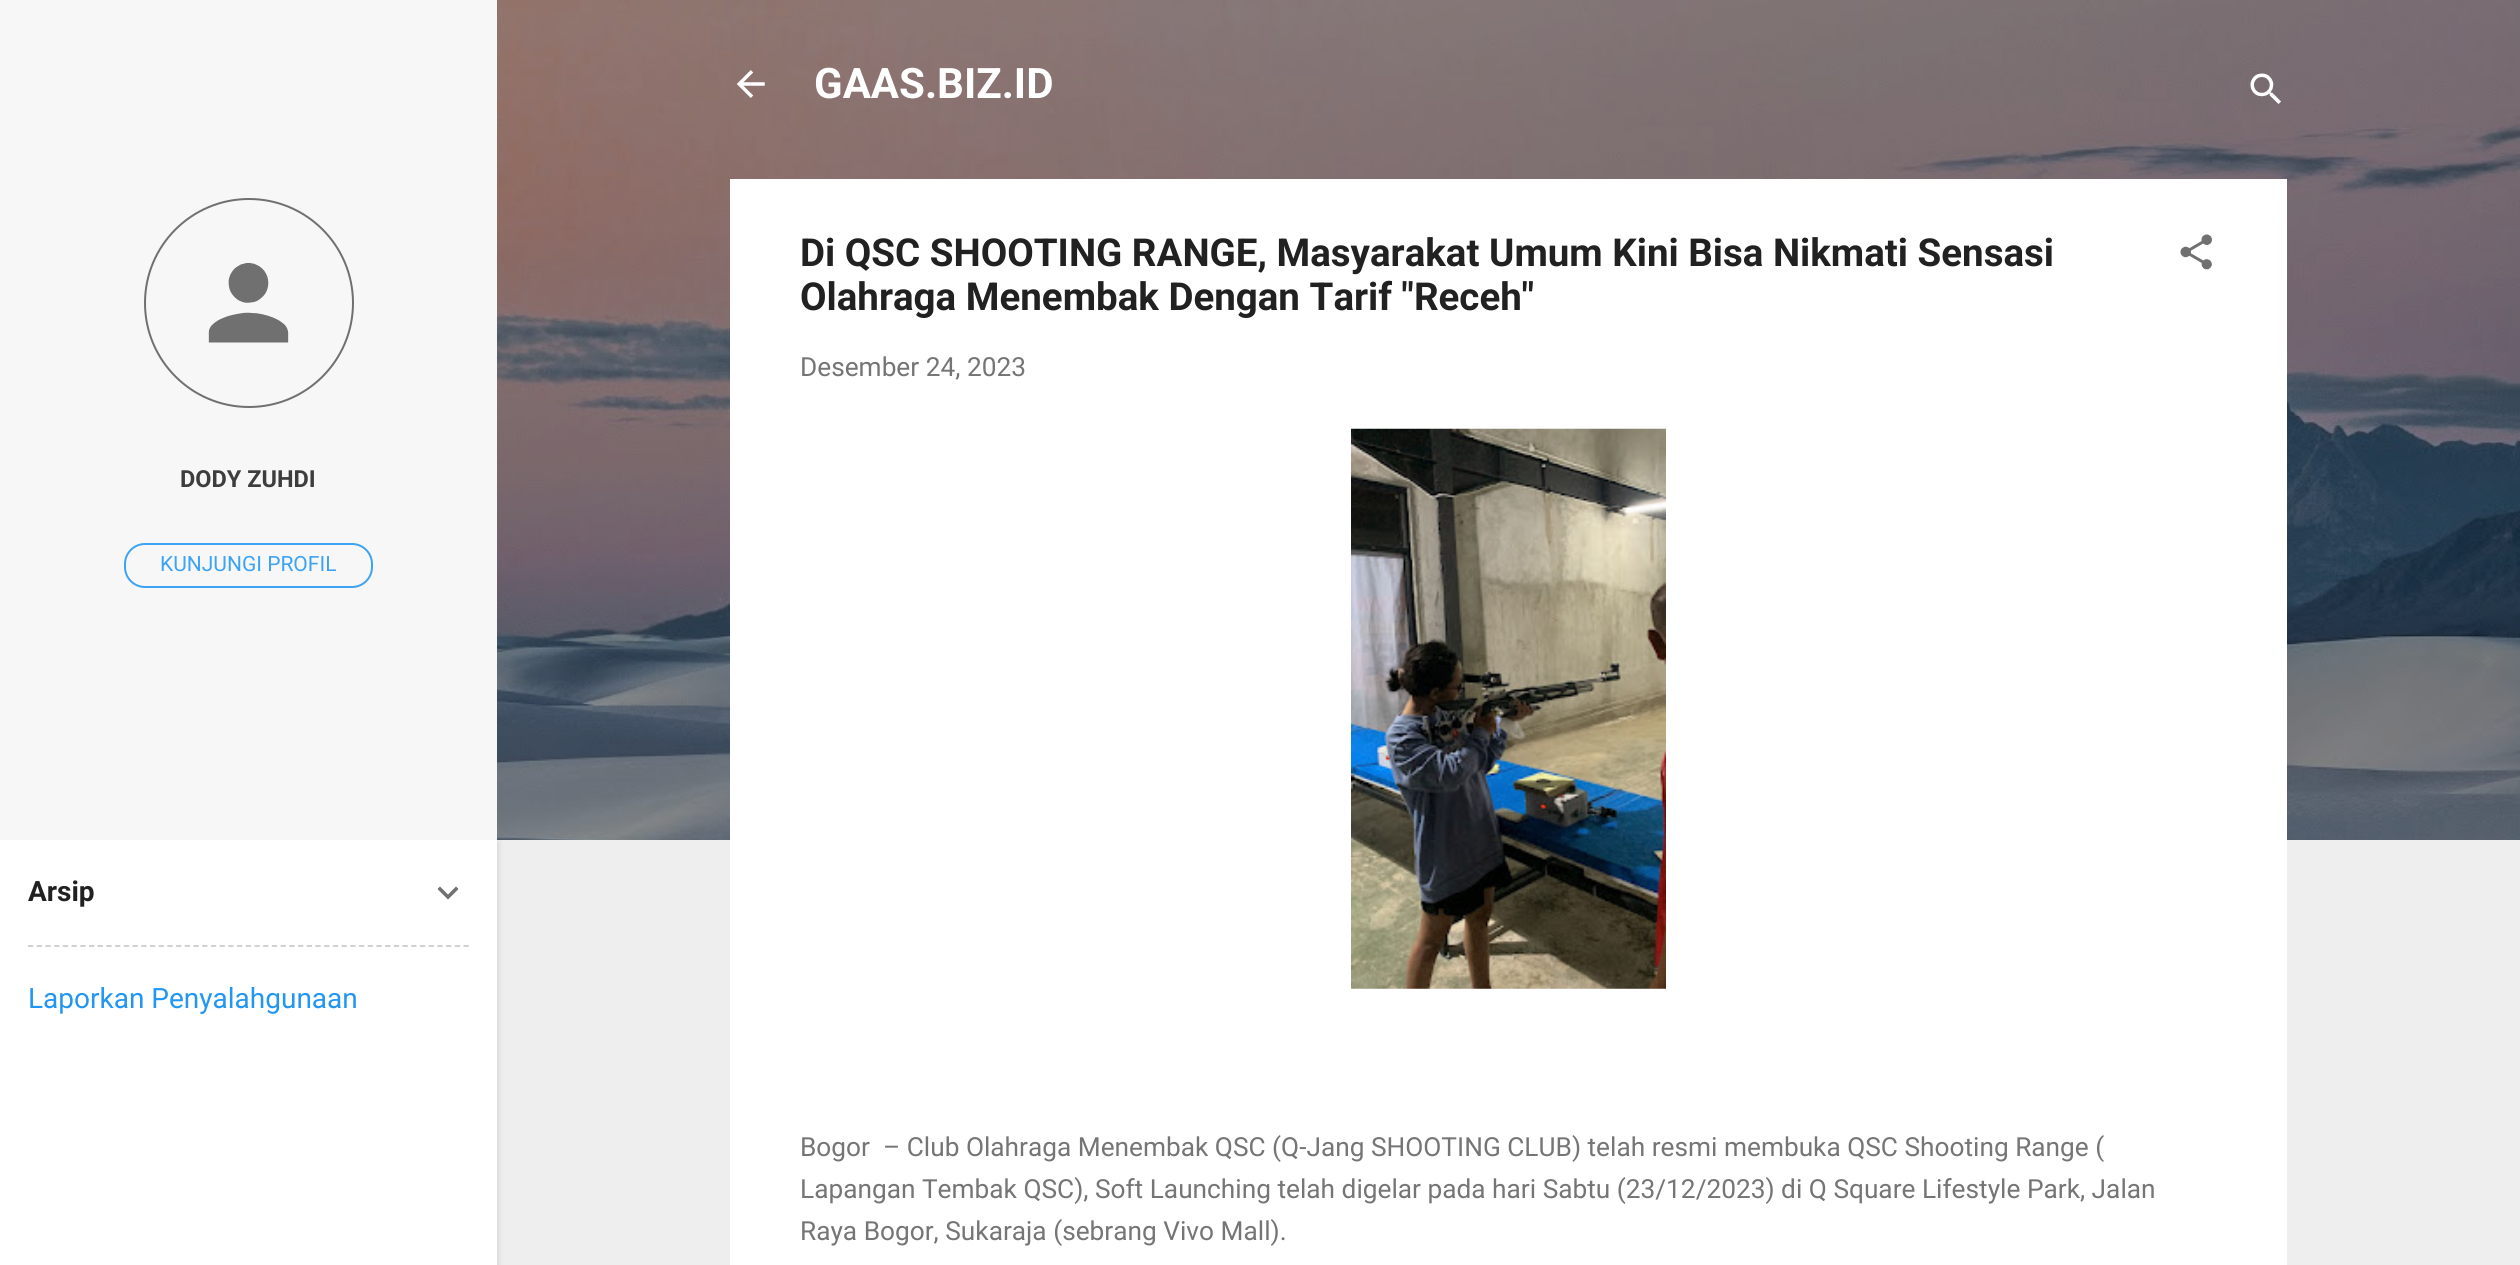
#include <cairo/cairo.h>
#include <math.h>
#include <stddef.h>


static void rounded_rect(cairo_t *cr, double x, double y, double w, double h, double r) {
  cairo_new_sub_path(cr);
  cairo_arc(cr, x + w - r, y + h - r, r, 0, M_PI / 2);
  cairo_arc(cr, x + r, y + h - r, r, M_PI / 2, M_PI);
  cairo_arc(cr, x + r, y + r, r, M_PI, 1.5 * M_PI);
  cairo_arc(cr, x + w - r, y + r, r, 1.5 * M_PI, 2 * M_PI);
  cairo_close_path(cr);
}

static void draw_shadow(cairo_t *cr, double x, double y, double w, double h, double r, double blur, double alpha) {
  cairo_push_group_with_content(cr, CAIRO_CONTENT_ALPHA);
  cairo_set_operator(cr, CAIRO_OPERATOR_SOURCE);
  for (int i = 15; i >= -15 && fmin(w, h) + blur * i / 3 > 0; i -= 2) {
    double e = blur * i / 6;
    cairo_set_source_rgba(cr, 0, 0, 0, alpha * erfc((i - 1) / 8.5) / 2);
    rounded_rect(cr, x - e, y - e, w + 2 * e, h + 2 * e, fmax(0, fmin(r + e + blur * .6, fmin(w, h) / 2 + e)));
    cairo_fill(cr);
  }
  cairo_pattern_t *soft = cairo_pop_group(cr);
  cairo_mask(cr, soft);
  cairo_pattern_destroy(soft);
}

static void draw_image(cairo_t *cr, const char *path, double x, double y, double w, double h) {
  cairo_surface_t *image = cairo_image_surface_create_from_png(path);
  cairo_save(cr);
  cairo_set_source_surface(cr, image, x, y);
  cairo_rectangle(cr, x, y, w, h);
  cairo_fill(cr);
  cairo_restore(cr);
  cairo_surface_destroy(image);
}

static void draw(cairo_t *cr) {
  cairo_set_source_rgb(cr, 238 / 255.0, 238 / 255.0, 238 / 255.0);
  cairo_paint(cr);
  draw_image(cr, "images/3.png", 497, 0, 2023, 840);
  cairo_set_source_rgb(cr, 0, 0, 0);
  draw_shadow(cr, 2, 842, 497, 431, 0, 2.5, 0.1);
  cairo_set_source_rgb(cr, 1, 1, 1);
  cairo_rectangle(cr, 0, 840, 497, 425);
  cairo_fill(cr);
  cairo_set_source_rgb(cr, 247 / 255.0, 247 / 255.0, 247 / 255.0);
  cairo_rectangle(cr, 0, 0, 497, 840);
  cairo_fill(cr);
  cairo_arc(cr, 249, 303, 104, 0, 2 * M_PI);
  cairo_set_source_rgb(cr, 112 / 255.0, 112 / 255.0, 112 / 255.0);
  cairo_stroke(cr);
  draw_image(cr, "images/1.png", 208, 263, 81, 80);
  rounded_rect(cr, 125, 544, 247, 43, 20);
  cairo_set_source_rgb(cr, 61 / 255.0, 163 / 255.0, 244 / 255.0);
  cairo_stroke(cr);
  draw_image(cr, "images/2.png", 437, 886, 22, 14);
  cairo_new_path(cr);
  cairo_move_to(cr, 28, 946);
  cairo_line_to(cr, 469, 946);
  cairo_set_source_rgb(cr, 204 / 255.0, 204 / 255.0, 204 / 255.0);
  cairo_set_line_width(cr, 1.8);
  cairo_set_dash(cr, (double[]){5.25, 3.46}, 2, 0);
  cairo_stroke(cr);
  draw_image(cr, "images/4.png", 737, 70, 28, 28);
  draw_image(cr, "images/5.png", 2250, 73, 31, 31);
  cairo_set_source_rgb(cr, 1, 1, 1);
  cairo_rectangle(cr, 730, 179, 1557, 1086);
  cairo_fill(cr);
  draw_image(cr, "images/6.png", 2180, 234, 32, 36);
  draw_image(cr, "images/7.png", 1351, 428, 315, 561);
  cairo_select_font_face(cr, "Roboto", CAIRO_FONT_SLANT_NORMAL, CAIRO_FONT_WEIGHT_BOLD);
  cairo_set_font_size(cr, 23.5);
  cairo_set_source_rgb(cr, 61 / 255.0, 61 / 255.0, 61 / 255.0);
  cairo_move_to(cr, 180, 487);
  cairo_show_text(cr, "DODY ZUHDI");
  cairo_select_font_face(cr, "Roboto", CAIRO_FONT_SLANT_NORMAL, CAIRO_FONT_WEIGHT_NORMAL);
  cairo_set_font_size(cr, 21);
  cairo_set_source_rgb(cr, 61 / 255.0, 163 / 255.0, 244 / 255.0);
  cairo_move_to(cr, 160, 571);
  cairo_show_text(cr, "KUNJUNGI PROFIL");
  cairo_select_font_face(cr, "Roboto", CAIRO_FONT_SLANT_NORMAL, CAIRO_FONT_WEIGHT_BOLD);
  cairo_set_font_size(cr, 28);
  cairo_set_source_rgb(cr, 33 / 255.0, 33 / 255.0, 33 / 255.0);
  cairo_move_to(cr, 28, 901);
  cairo_show_text(cr, "Arsip");
  cairo_select_font_face(cr, "Roboto", CAIRO_FONT_SLANT_NORMAL, CAIRO_FONT_WEIGHT_NORMAL);
  cairo_set_source_rgb(cr, 33 / 255.0, 150 / 255.0, 243 / 255.0);
  cairo_move_to(cr, 28, 1008);
  cairo_show_text(cr, "Laporkan Penyalahgunaan");
  cairo_select_font_face(cr, "Roboto", CAIRO_FONT_SLANT_NORMAL, CAIRO_FONT_WEIGHT_BOLD);
  cairo_set_font_size(cr, 42);
  cairo_set_source_rgb(cr, 1, 1, 1);
  cairo_move_to(cr, 814, 98);
  cairo_show_text(cr, "GAAS.BIZ.ID");
  cairo_set_font_size(cr, 38.5);
  cairo_set_source_rgb(cr, 33 / 255.0, 33 / 255.0, 33 / 255.0);
  cairo_move_to(cr, 800, 266);
  cairo_show_text(cr, "Di QSC SHOOTING RANGE, Masyarakat Umum Kini Bisa Nikmati Sensasi");
  cairo_move_to(cr, 800, 310);
  cairo_show_text(cr, "Olahraga Menembak Dengan Tarif \"Receh\"");
  cairo_select_font_face(cr, "Roboto", CAIRO_FONT_SLANT_NORMAL, CAIRO_FONT_WEIGHT_NORMAL);
  cairo_set_font_size(cr, 26.25);
  cairo_set_source_rgb(cr, 117 / 255.0, 117 / 255.0, 117 / 255.0);
  cairo_move_to(cr, 800, 376);
  cairo_show_text(cr, "Desember 24, 2023");
  cairo_move_to(cr, 800, 1156);
  cairo_show_text(cr, "Bogor  – Club Olahraga Menembak QSC (Q-Jang SHOOTING CLUB) telah resmi membuka QSC Shooting Range (");
  cairo_move_to(cr, 800, 1198);
  cairo_show_text(cr, "Lapangan Tembak QSC), Soft Launching telah digelar pada hari Sabtu (23/12/2023) di Q Square Lifestyle Park, Jalan");
  cairo_move_to(cr, 800, 1240);
  cairo_show_text(cr, "Raya Bogor, Sukaraja (sebrang Vivo Mall).");
}

int main(void) {
  cairo_surface_t *surface = cairo_image_surface_create(CAIRO_FORMAT_RGB24, 2520, 1265);
  cairo_t *cr = cairo_create(surface);
  cairo_font_options_t *options = cairo_font_options_create();
  cairo_font_options_set_hint_metrics(options, CAIRO_HINT_METRICS_OFF);
  cairo_font_options_set_hint_style(options, CAIRO_HINT_STYLE_NONE);
  cairo_set_font_options(cr, options);
  cairo_set_miter_limit(cr, 4);
  draw(cr);
  cairo_surface_write_to_png(surface, "out.png");
  cairo_font_options_destroy(options);
  cairo_destroy(cr);
  cairo_surface_destroy(surface);
  return 0;
}
